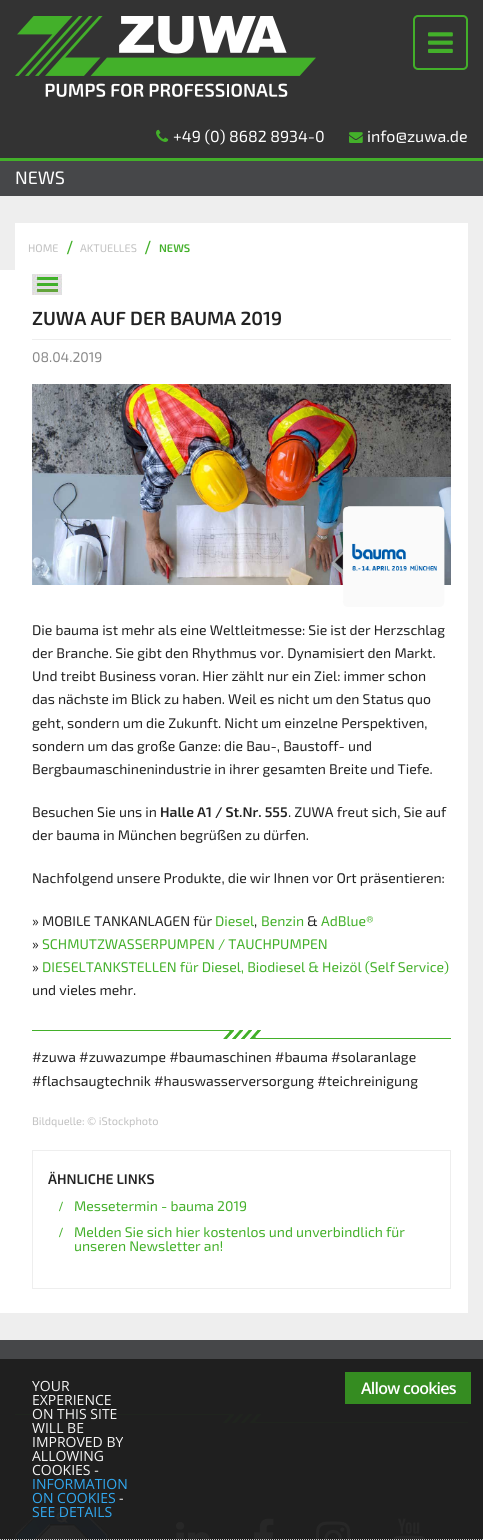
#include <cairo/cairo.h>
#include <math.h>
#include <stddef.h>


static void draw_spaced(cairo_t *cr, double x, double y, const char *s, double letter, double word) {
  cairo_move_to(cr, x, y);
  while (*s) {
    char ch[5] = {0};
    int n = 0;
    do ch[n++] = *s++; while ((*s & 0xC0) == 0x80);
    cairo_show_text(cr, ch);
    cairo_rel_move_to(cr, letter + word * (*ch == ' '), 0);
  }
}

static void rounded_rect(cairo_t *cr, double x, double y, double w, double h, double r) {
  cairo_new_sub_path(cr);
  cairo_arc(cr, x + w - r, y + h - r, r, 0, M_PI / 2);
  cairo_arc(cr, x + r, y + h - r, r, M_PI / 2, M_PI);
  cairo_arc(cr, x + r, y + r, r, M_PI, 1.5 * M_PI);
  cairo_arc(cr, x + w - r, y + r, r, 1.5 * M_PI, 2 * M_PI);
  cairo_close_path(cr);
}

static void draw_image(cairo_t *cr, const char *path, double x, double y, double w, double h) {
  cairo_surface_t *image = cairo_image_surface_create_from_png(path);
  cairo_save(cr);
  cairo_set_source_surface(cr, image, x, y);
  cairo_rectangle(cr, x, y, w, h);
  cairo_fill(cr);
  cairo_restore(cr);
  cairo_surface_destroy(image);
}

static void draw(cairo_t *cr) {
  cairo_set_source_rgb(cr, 51 / 255.0, 51 / 255.0, 51 / 255.0);
  cairo_paint(cr);
  draw_image(cr, "images/1.png", 15, 16, 301, 81);
  rounded_rect(cr, 414, 16, 53, 53, 4);
  cairo_set_source_rgb(cr, 67 / 255.0, 176 / 255.0, 42 / 255.0);
  cairo_stroke(cr);
  draw_image(cr, "images/2.png", 428, 32, 25, 21);
  draw_image(cr, "images/3.png", 156, 129, 13, 13);
  draw_image(cr, "images/4.png", 349, 132, 14, 11);
  cairo_rectangle(cr, 0, 158, 483, 3);
  cairo_fill(cr);
  cairo_set_source_rgb(cr, 238 / 255.0, 238 / 255.0, 238 / 255.0);
  cairo_rectangle(cr, 0, 196, 483, 1144);
  cairo_fill(cr);
  cairo_set_source_rgb(cr, 70 / 255.0, 71 / 255.0, 73 / 255.0);
  cairo_rectangle(cr, 0, 161, 483, 35);
  cairo_fill(cr);
  cairo_set_source_rgb(cr, 1, 1, 1);
  cairo_rectangle(cr, 15, 223, 453, 1090);
  cairo_fill(cr);
  cairo_rectangle(cr, 0, 270, 15, 1043);
  cairo_fill(cr);
  draw_image(cr, "images/5.png", 32, 274, 30, 21);
  cairo_set_source_rgb(cr, 238 / 255.0, 238 / 255.0, 238 / 255.0);
  cairo_rectangle(cr, 32, 339, 419, 1);
  cairo_fill(cr);
  draw_image(cr, "images/6.png", 32, 384, 419, 223);
  draw_image(cr, "images/7.png", 223, 1030, 38, 9);
  cairo_set_source_rgb(cr, 67 / 255.0, 176 / 255.0, 42 / 255.0);
  cairo_rectangle(cr, 32, 1030, 191, 1);
  cairo_fill(cr);
  cairo_rectangle(cr, 261, 1038, 190, 1);
  cairo_fill(cr);
  cairo_rectangle(cr, 32.5, 1150.5, 418, 138);
  cairo_set_source_rgb(cr, 238 / 255.0, 238 / 255.0, 238 / 255.0);
  cairo_set_line_width(cr, 1);
  cairo_stroke(cr);
  cairo_set_source_rgb(cr, 70 / 255.0, 71 / 255.0, 73 / 255.0);
  cairo_rectangle(cr, 0, 1340, 483, 19);
  cairo_fill(cr);
  cairo_set_source_rgb(cr, 31 / 255.0, 31 / 255.0, 31 / 255.0);
  cairo_rectangle(cr, 0, 1359, 483, 181);
  cairo_fill(cr);
  draw_image(cr, "images/8.png", 223, 1414, 38, 9);
  cairo_set_source_rgb(cr, 31 / 255.0, 36 / 255.0, 30 / 255.0);
  cairo_rectangle(cr, 15, 1414, 208, 1);
  cairo_fill(cr);
  cairo_rectangle(cr, 261, 1422, 207, 1);
  cairo_fill(cr);
  draw_image(cr, "images/9.png", 15, 1507, 94, 33);
  draw_image(cr, "images/10.png", 176, 1522, 34, 18);
  draw_image(cr, "images/11.png", 254, 1518, 20, 22);
  draw_image(cr, "images/12.png", 316, 1521, 35, 19);
  draw_image(cr, "images/13.png", 393, 1518, 33, 22);
  cairo_new_path(cr);
  cairo_move_to(cr, 0, 1539.5);
  cairo_line_to(cr, 483, 1539.5);
  cairo_set_source_rgb(cr, 204 / 255.0, 204 / 255.0, 204 / 255.0);
  cairo_set_dash(cr, (double[]){1, 1}, 2, 0);
  cairo_stroke(cr);
  cairo_set_source_rgb(cr, 53 / 255.0, 140 / 255.0, 33 / 255.0);
  cairo_rectangle(cr, 345, 1372, 126, 32);
  cairo_fill(cr);
  cairo_select_font_face(cr, "Exo 2", CAIRO_FONT_SLANT_NORMAL, CAIRO_FONT_WEIGHT_NORMAL);
  cairo_set_font_size(cr, 16);
  cairo_set_source_rgb(cr, 1, 1, 1);
  cairo_move_to(cr, 173, 142);
  cairo_show_text(cr, "+49 (0) 8682 8934-0");
  cairo_move_to(cr, 367, 142);
  cairo_show_text(cr, "info@zuwa.de");
  cairo_set_font_size(cr, 18);
  cairo_move_to(cr, 15, 184);
  cairo_show_text(cr, "NEWS");
  cairo_set_font_size(cr, 11);
  cairo_set_source_rgb(cr, 192 / 255.0, 192 / 255.0, 192 / 255.0);
  cairo_move_to(cr, 28, 252);
  cairo_show_text(cr, "HOME");
  cairo_select_font_face(cr, "Liberation Serif", CAIRO_FONT_SLANT_NORMAL, CAIRO_FONT_WEIGHT_BOLD);
  cairo_set_font_size(cr, 20);
  cairo_set_source_rgb(cr, 67 / 255.0, 176 / 255.0, 42 / 255.0);
  cairo_move_to(cr, 67, 254);
  cairo_show_text(cr, "/");
  cairo_select_font_face(cr, "Exo 2", CAIRO_FONT_SLANT_NORMAL, CAIRO_FONT_WEIGHT_NORMAL);
  cairo_set_font_size(cr, 11);
  cairo_set_source_rgb(cr, 192 / 255.0, 192 / 255.0, 192 / 255.0);
  cairo_move_to(cr, 80, 252);
  cairo_show_text(cr, "AKTUELLES");
  cairo_select_font_face(cr, "Liberation Serif", CAIRO_FONT_SLANT_NORMAL, CAIRO_FONT_WEIGHT_BOLD);
  cairo_set_font_size(cr, 20);
  cairo_set_source_rgb(cr, 67 / 255.0, 176 / 255.0, 42 / 255.0);
  cairo_move_to(cr, 145, 254);
  cairo_show_text(cr, "/");
  cairo_select_font_face(cr, "Exo 2 SemiBold", CAIRO_FONT_SLANT_NORMAL, CAIRO_FONT_WEIGHT_NORMAL);
  cairo_set_font_size(cr, 11);
  cairo_move_to(cr, 159, 252);
  cairo_show_text(cr, "NEWS");
  cairo_set_font_size(cr, 19);
  cairo_set_source_rgb(cr, 34 / 255.0, 34 / 255.0, 34 / 255.0);
  cairo_move_to(cr, 32, 325);
  cairo_show_text(cr, "ZUWA AUF DER BAUMA 2019");
  cairo_select_font_face(cr, "Exo 2", CAIRO_FONT_SLANT_NORMAL, CAIRO_FONT_WEIGHT_NORMAL);
  cairo_set_font_size(cr, 14);
  cairo_set_source_rgb(cr, 136 / 255.0, 136 / 255.0, 136 / 255.0);
  cairo_move_to(cr, 32, 362);
  cairo_show_text(cr, "08.04.2019");
  cairo_set_source_rgb(cr, 34 / 255.0, 34 / 255.0, 34 / 255.0);
  cairo_move_to(cr, 32, 635);
  cairo_show_text(cr, "Die bauma ist mehr als eine Weltleitmesse: Sie ist der Herzschlag");
  cairo_move_to(cr, 32, 658);
  cairo_show_text(cr, "der Branche. Sie gibt den Rhythmus vor. Dynamisiert den Markt.");
  cairo_move_to(cr, 32, 681);
  cairo_show_text(cr, "Und treibt Business voran. Hier zählt nur ein Ziel: immer schon");
  cairo_move_to(cr, 32, 704);
  cairo_show_text(cr, "das nächste im Blick zu haben. Weil es nicht um den Status quo");
  cairo_move_to(cr, 32, 728);
  cairo_show_text(cr, "geht, sondern um die Zukunft. Nicht um einzelne Perspektiven,");
  cairo_move_to(cr, 32, 751);
  cairo_show_text(cr, "sondern um das große Ganze: die Bau-, Baustoff- und");
  cairo_move_to(cr, 32, 774);
  cairo_show_text(cr, "Bergbaumaschinenindustrie in ihrer gesamten Breite und Tiefe.");
  cairo_move_to(cr, 32, 817);
  cairo_show_text(cr, "Besuchen Sie uns in");
  cairo_select_font_face(cr, "Exo 2 SemiBold", CAIRO_FONT_SLANT_NORMAL, CAIRO_FONT_WEIGHT_NORMAL);
  cairo_move_to(cr, 160, 817);
  cairo_show_text(cr, "Halle A1 / St.Nr. 555");
  cairo_select_font_face(cr, "Exo 2", CAIRO_FONT_SLANT_NORMAL, CAIRO_FONT_WEIGHT_NORMAL);
  cairo_move_to(cr, 288, 817);
  cairo_show_text(cr, ". ZUWA freut sich, Sie auf");
  cairo_move_to(cr, 32, 840);
  cairo_show_text(cr, "der bauma in München begrüßen zu dürfen.");
  cairo_move_to(cr, 32, 883);
  cairo_show_text(cr, "Nachfolgend unsere Produkte, die wir Ihnen vor Ort präsentieren:");
  cairo_move_to(cr, 32, 926);
  cairo_show_text(cr, "» MOBILE TANKANLAGEN für");
  cairo_set_source_rgb(cr, 67 / 255.0, 176 / 255.0, 42 / 255.0);
  cairo_move_to(cr, 215, 926);
  cairo_show_text(cr, "Diesel");
  cairo_set_source_rgb(cr, 34 / 255.0, 34 / 255.0, 34 / 255.0);
  cairo_move_to(cr, 254, 926);
  cairo_show_text(cr, ",");
  cairo_set_source_rgb(cr, 67 / 255.0, 176 / 255.0, 42 / 255.0);
  cairo_move_to(cr, 261, 926);
  cairo_show_text(cr, "Benzin");
  cairo_set_source_rgb(cr, 34 / 255.0, 34 / 255.0, 34 / 255.0);
  cairo_move_to(cr, 307, 926);
  cairo_show_text(cr, "&");
  cairo_set_source_rgb(cr, 67 / 255.0, 176 / 255.0, 42 / 255.0);
  cairo_move_to(cr, 321, 926);
  cairo_show_text(cr, "AdBlue®");
  cairo_set_source_rgb(cr, 34 / 255.0, 34 / 255.0, 34 / 255.0);
  cairo_move_to(cr, 32, 949);
  cairo_show_text(cr, "»");
  cairo_set_source_rgb(cr, 67 / 255.0, 176 / 255.0, 42 / 255.0);
  cairo_move_to(cr, 42, 949);
  cairo_show_text(cr, "SCHMUTZWASSERPUMPEN / TAUCHPUMPEN");
  cairo_set_source_rgb(cr, 34 / 255.0, 34 / 255.0, 34 / 255.0);
  cairo_move_to(cr, 32, 972);
  cairo_show_text(cr, "»");
  cairo_set_source_rgb(cr, 67 / 255.0, 176 / 255.0, 42 / 255.0);
  cairo_move_to(cr, 42, 972);
  cairo_show_text(cr, "DIESELTANKSTELLEN für Diesel, Biodiesel & Heizöl (Self Service)");
  cairo_set_source_rgb(cr, 34 / 255.0, 34 / 255.0, 34 / 255.0);
  cairo_move_to(cr, 32, 995);
  cairo_show_text(cr, "und vieles mehr.");
  cairo_move_to(cr, 32, 1062);
  cairo_show_text(cr, "#zuwa #zuwazumpe #baumaschinen #bauma #solaranlage");
  cairo_move_to(cr, 32, 1086);
  cairo_show_text(cr, "#flachsaugtechnik #hauswasserversorgung #teichreinigung");
  cairo_set_font_size(cr, 11);
  cairo_set_source_rgb(cr, 192 / 255.0, 192 / 255.0, 192 / 255.0);
  cairo_move_to(cr, 32, 1125);
  cairo_show_text(cr, "Bildquelle: © iStockphoto");
  cairo_select_font_face(cr, "Exo 2 SemiBold", CAIRO_FONT_SLANT_NORMAL, CAIRO_FONT_WEIGHT_NORMAL);
  cairo_set_font_size(cr, 14);
  cairo_set_source_rgb(cr, 34 / 255.0, 34 / 255.0, 34 / 255.0);
  cairo_move_to(cr, 48, 1184);
  cairo_show_text(cr, "ÄHNLICHE LINKS");
  cairo_select_font_face(cr, "Liberation Serif", CAIRO_FONT_SLANT_NORMAL, CAIRO_FONT_WEIGHT_BOLD);
  cairo_set_source_rgb(cr, 67 / 255.0, 176 / 255.0, 42 / 255.0);
  cairo_move_to(cr, 59, 1211);
  cairo_show_text(cr, "/");
  cairo_select_font_face(cr, "Exo 2", CAIRO_FONT_SLANT_NORMAL, CAIRO_FONT_WEIGHT_NORMAL);
  cairo_move_to(cr, 74, 1211);
  cairo_show_text(cr, "Messetermin - bauma 2019");
  cairo_select_font_face(cr, "Liberation Serif", CAIRO_FONT_SLANT_NORMAL, CAIRO_FONT_WEIGHT_BOLD);
  cairo_move_to(cr, 59, 1237);
  cairo_show_text(cr, "/");
  cairo_select_font_face(cr, "Exo 2", CAIRO_FONT_SLANT_NORMAL, CAIRO_FONT_WEIGHT_NORMAL);
  cairo_move_to(cr, 74, 1237);
  cairo_show_text(cr, "Melden Sie sich hier kostenlos und unverbindlich für");
  cairo_move_to(cr, 74, 1251);
  cairo_show_text(cr, "unseren Newsletter an!");
  cairo_select_font_face(cr, "Open Sans", CAIRO_FONT_SLANT_NORMAL, CAIRO_FONT_WEIGHT_NORMAL);
  cairo_set_source_rgb(cr, 245 / 255.0, 245 / 255.0, 245 / 255.0);
  cairo_move_to(cr, 32, 1391);
  cairo_show_text(cr, "YOUR");
  cairo_move_to(cr, 32, 1405);
  cairo_show_text(cr, "EXPERIENCE");
  cairo_move_to(cr, 32, 1419);
  cairo_show_text(cr, "ON THIS SITE");
  cairo_move_to(cr, 32, 1433);
  cairo_show_text(cr, "WILL BE");
  cairo_move_to(cr, 32, 1447);
  cairo_show_text(cr, "IMPROVED BY");
  cairo_move_to(cr, 32, 1461);
  cairo_show_text(cr, "ALLOWING");
  cairo_move_to(cr, 32, 1475);
  cairo_show_text(cr, "COOKIES -");
  cairo_set_source_rgb(cr, 49 / 255.0, 168 / 255.0, 240 / 255.0);
  cairo_move_to(cr, 32, 1489);
  cairo_show_text(cr, "INFORMATION");
  cairo_move_to(cr, 32, 1503);
  cairo_show_text(cr, "ON COOKIES");
  cairo_set_source_rgb(cr, 245 / 255.0, 245 / 255.0, 245 / 255.0);
  cairo_move_to(cr, 119, 1503);
  cairo_show_text(cr, "-");
  cairo_set_source_rgb(cr, 49 / 255.0, 168 / 255.0, 240 / 255.0);
  cairo_move_to(cr, 32, 1517);
  cairo_show_text(cr, "SEE DETAILS");
  cairo_select_font_face(cr, "Open Sans SemiBold", CAIRO_FONT_SLANT_NORMAL, CAIRO_FONT_WEIGHT_NORMAL);
  cairo_set_font_size(cr, 16);
  cairo_set_source_rgb(cr, 1, 1, 1);
  draw_spaced(cr, 361, 1394, "Allow cookies", -0.75, 0);
}

int main(void) {
  cairo_surface_t *surface = cairo_image_surface_create(CAIRO_FORMAT_RGB24, 483, 1540);
  cairo_t *cr = cairo_create(surface);
  cairo_font_options_t *options = cairo_font_options_create();
  cairo_font_options_set_hint_metrics(options, CAIRO_HINT_METRICS_OFF);
  cairo_font_options_set_hint_style(options, CAIRO_HINT_STYLE_NONE);
  cairo_set_font_options(cr, options);
  cairo_set_miter_limit(cr, 4);
  draw(cr);
  cairo_surface_write_to_png(surface, "out.png");
  cairo_font_options_destroy(options);
  cairo_destroy(cr);
  cairo_surface_destroy(surface);
  return 0;
}
